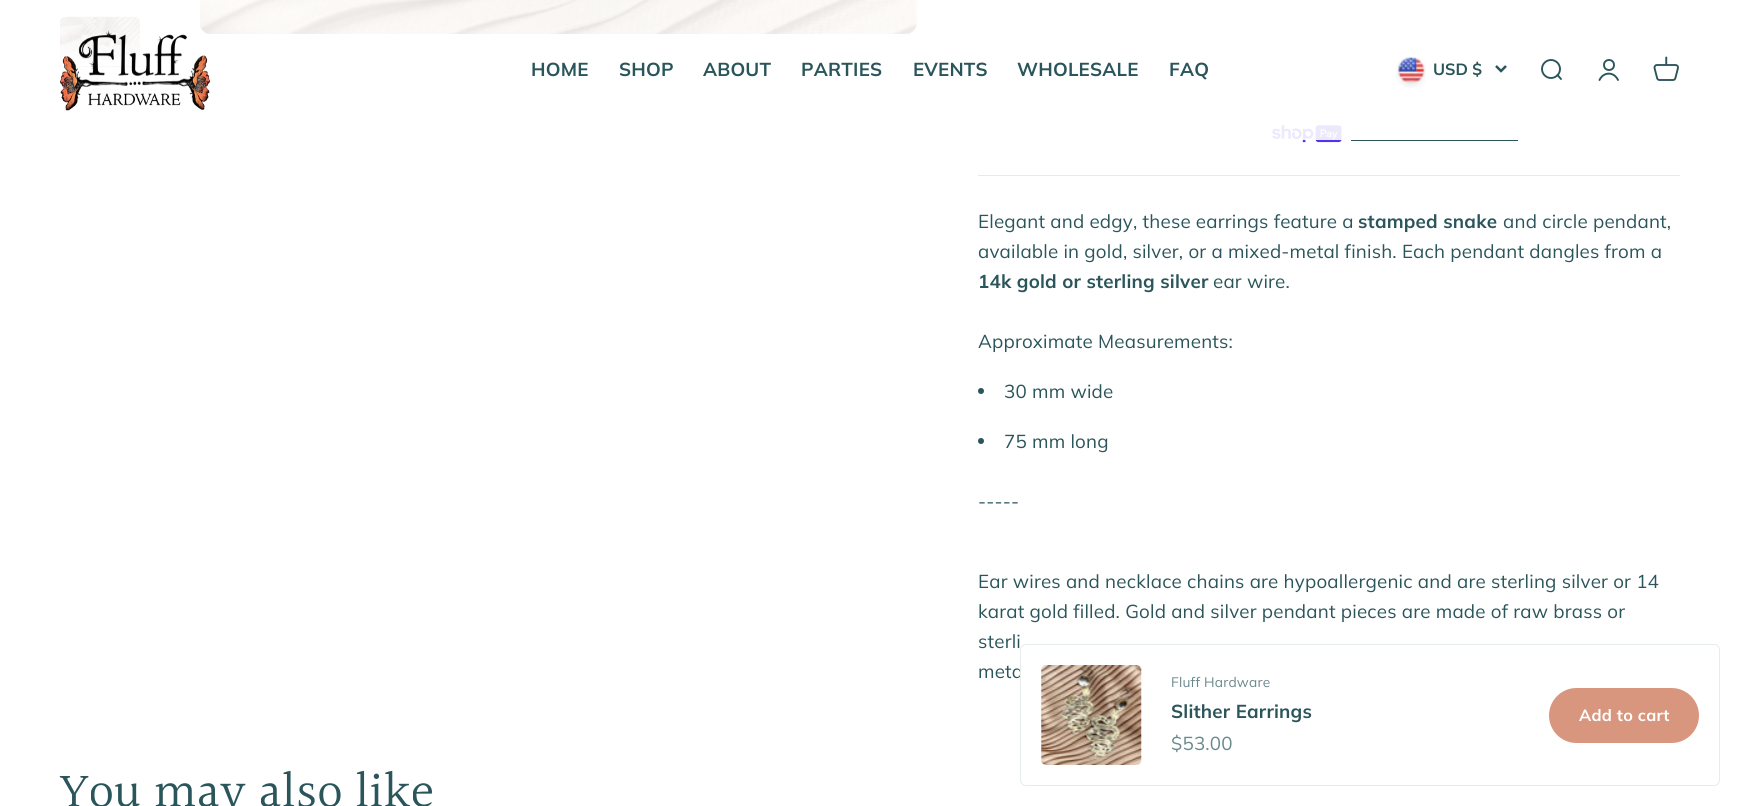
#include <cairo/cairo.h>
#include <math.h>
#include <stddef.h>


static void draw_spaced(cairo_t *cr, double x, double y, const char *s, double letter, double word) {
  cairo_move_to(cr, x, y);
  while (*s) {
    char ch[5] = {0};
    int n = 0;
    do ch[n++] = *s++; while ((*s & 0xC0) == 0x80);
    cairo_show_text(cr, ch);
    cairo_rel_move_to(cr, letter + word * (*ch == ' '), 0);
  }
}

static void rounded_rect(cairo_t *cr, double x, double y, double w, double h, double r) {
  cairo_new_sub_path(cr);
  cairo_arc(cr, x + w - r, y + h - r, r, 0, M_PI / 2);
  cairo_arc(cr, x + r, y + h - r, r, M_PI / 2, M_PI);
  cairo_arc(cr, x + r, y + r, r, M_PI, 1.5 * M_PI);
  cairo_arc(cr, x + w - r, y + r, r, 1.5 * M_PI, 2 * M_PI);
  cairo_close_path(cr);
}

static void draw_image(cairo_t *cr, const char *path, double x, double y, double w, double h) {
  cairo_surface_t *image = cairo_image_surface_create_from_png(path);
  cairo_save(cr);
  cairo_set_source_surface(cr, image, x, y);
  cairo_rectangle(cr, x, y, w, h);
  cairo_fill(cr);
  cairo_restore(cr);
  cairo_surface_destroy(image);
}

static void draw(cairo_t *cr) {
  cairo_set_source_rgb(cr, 1, 1, 1);
  cairo_paint(cr);
  draw_image(cr, "images/4.png", 60, 16, 80, 51);
  draw_image(cr, "images/5.png", 200, 0, 718, 34);
  draw_image(cr, "images/6.png", 1272, 125, 70, 18);
  cairo_set_source_rgba(cr, 1, 1, 1, 0.89);
  cairo_rectangle(cr, 60, 0, 1282, 140);
  cairo_fill(cr);
  draw_image(cr, "images/1.png", 60, 30, 150, 81);
  draw_image(cr, "images/2.png", 1396, 57, 30, 31);
  cairo_new_path(cr);
  cairo_move_to(cr, 1496, 66);
  cairo_line_to(cr, 1501, 71);
  cairo_line_to(cr, 1506, 66);
  cairo_set_source_rgb(cr, 42 / 255.0, 85 / 255.0, 90 / 255.0);
  cairo_set_line_width(cr, 2.5);
  cairo_stroke(cr);
  cairo_arc(cr, 1551, 69, 9, 0, 2 * M_PI);
  cairo_set_line_width(cr, 1.9);
  cairo_stroke(cr);
  cairo_new_path(cr);
  cairo_move_to(cr, 1557.5, 75);
  cairo_line_to(cr, 1561, 79);
  cairo_set_line_cap(cr, CAIRO_LINE_CAP_ROUND);
  cairo_set_line_join(cr, CAIRO_LINE_JOIN_ROUND);
  cairo_stroke(cr);
  cairo_arc(cr, 1609, 65, 5, 0, 2 * M_PI);
  cairo_set_line_cap(cr, CAIRO_LINE_CAP_BUTT);
  cairo_set_line_join(cr, CAIRO_LINE_JOIN_MITER);
  cairo_stroke(cr);
  cairo_new_path(cr);
  cairo_move_to(cr, 1599.5, 80);
  cairo_curve_to(cr, 1603.5, 71.5, 1614, 71.5, 1618, 80);
  cairo_set_line_cap(cr, CAIRO_LINE_CAP_ROUND);
  cairo_stroke(cr);
  draw_image(cr, "images/3.png", 1653, 56, 26, 25);
  cairo_rectangle(cr, 1351, 140, 167, 1);
  cairo_fill(cr);
  cairo_set_source_rgb(cr, 229 / 255.0, 235 / 255.0, 235 / 255.0);
  cairo_rectangle(cr, 978, 175, 702, 1);
  cairo_fill(cr);
  cairo_set_source_rgb(cr, 42 / 255.0, 85 / 255.0, 90 / 255.0);
  cairo_arc(cr, 981, 391, 3, 0, 2 * M_PI);
  cairo_fill(cr);
  cairo_arc(cr, 981, 441, 3, 0, 2 * M_PI);
  cairo_fill(cr);
  cairo_select_font_face(cr, "Muli", CAIRO_FONT_SLANT_NORMAL, CAIRO_FONT_WEIGHT_BOLD);
  cairo_set_font_size(cr, 18.75);
  draw_spaced(cr, 531, 76, "HOME", 0.2, 0);
  draw_spaced(cr, 619, 76, "SHOP", 0.2, 0);
  draw_spaced(cr, 703, 76, "ABOUT", 0.2, 0);
  draw_spaced(cr, 801, 76, "PARTIES", 0.2, 0);
  draw_spaced(cr, 913, 76, "EVENTS", 0.2, 0);
  draw_spaced(cr, 1017, 76, "WHOLESALE", 0.2, 0);
  draw_spaced(cr, 1169, 76, "FAQ", 0.2, 0);
  cairo_set_font_size(cr, 16.25);
  cairo_move_to(cr, 1433, 75);
  cairo_show_text(cr, "USD $");
  cairo_select_font_face(cr, "Muli", CAIRO_FONT_SLANT_NORMAL, CAIRO_FONT_WEIGHT_NORMAL);
  cairo_set_font_size(cr, 18.75);
  draw_spaced(cr, 978, 228, "Elegant and edgy, these earrings feature a", 0.2, 0);
  cairo_select_font_face(cr, "Muli", CAIRO_FONT_SLANT_NORMAL, CAIRO_FONT_WEIGHT_BOLD);
  draw_spaced(cr, 1358, 228, "stamped snake", 0.2, 0);
  cairo_select_font_face(cr, "Muli", CAIRO_FONT_SLANT_NORMAL, CAIRO_FONT_WEIGHT_NORMAL);
  draw_spaced(cr, 1503, 228, "and circle pendant,", 0.2, 0);
  draw_spaced(cr, 978, 258, "available in gold, silver, or a mixed-metal finish. Each pendant dangles from a", 0.2, 0);
  cairo_select_font_face(cr, "Muli", CAIRO_FONT_SLANT_NORMAL, CAIRO_FONT_WEIGHT_BOLD);
  draw_spaced(cr, 978, 288, "14k gold or sterling silver", 0.2, 0);
  cairo_select_font_face(cr, "Muli", CAIRO_FONT_SLANT_NORMAL, CAIRO_FONT_WEIGHT_NORMAL);
  draw_spaced(cr, 1213, 288, "ear wire.", 0.2, 0);
  draw_spaced(cr, 978, 348, "Approximate Measurements:", 0.2, 0);
  draw_spaced(cr, 1004, 398, "30 mm wide", 0.2, 0);
  draw_spaced(cr, 1004, 448, "75 mm long", 0.2, 0);
  draw_spaced(cr, 978, 508, "-----", 0.2, 0);
  draw_spaced(cr, 978, 588, "Ear wires and necklace chains are hypoallergenic and are sterling silver or 14", 0.2, 0);
  draw_spaced(cr, 978, 618, "karat gold filled. Gold and silver pendant pieces are made of raw brass or", 0.2, 0);
  draw_spaced(cr, 978, 648, "sterli", 0.2, 0);
  draw_spaced(cr, 978, 678, "meta", 0.2, 0);
  cairo_set_source_rgb(cr, 1, 1, 1);
  rounded_rect(cr, 1020, 644, 700, 142, 6);
  cairo_fill(cr);
  rounded_rect(cr, 1020.5, 644.5, 699, 141, 5.5);
  cairo_set_source_rgba(cr, 42 / 255.0, 85 / 255.0, 90 / 255.0, 0.12);
  cairo_set_line_width(cr, 1);
  cairo_set_line_cap(cr, CAIRO_LINE_CAP_BUTT);
  cairo_stroke(cr);
  draw_image(cr, "images/7.png", 1041, 665, 101, 100);
  cairo_set_font_size(cr, 13.75);
  cairo_set_source_rgb(cr, 106 / 255.0, 136 / 255.0, 140 / 255.0);
  draw_spaced(cr, 1171, 687, "Fluff Hardware", 0.2, 0);
  cairo_select_font_face(cr, "Muli", CAIRO_FONT_SLANT_NORMAL, CAIRO_FONT_WEIGHT_BOLD);
  cairo_set_font_size(cr, 18.75);
  cairo_set_source_rgb(cr, 42 / 255.0, 85 / 255.0, 90 / 255.0);
  draw_spaced(cr, 1171, 718, "Slither Earrings", 0.2, 0);
  cairo_select_font_face(cr, "Muli", CAIRO_FONT_SLANT_NORMAL, CAIRO_FONT_WEIGHT_NORMAL);
  cairo_set_source_rgb(cr, 106 / 255.0, 136 / 255.0, 140 / 255.0);
  draw_spaced(cr, 1171, 750, "$53.00", 0.2, 0);
  cairo_set_source_rgb(cr, 217 / 255.0, 150 / 255.0, 126 / 255.0);
  rounded_rect(cr, 1549, 688, 150, 55, 27.5);
  cairo_fill(cr);
  cairo_select_font_face(cr, "Muli", CAIRO_FONT_SLANT_NORMAL, CAIRO_FONT_WEIGHT_BOLD);
  cairo_set_font_size(cr, 16.25);
  cairo_set_source_rgb(cr, 1, 1, 1);
  draw_spaced(cr, 1579, 721, "Add to cart", 0.25, 0);
  cairo_select_font_face(cr, "Halant", CAIRO_FONT_SLANT_NORMAL, CAIRO_FONT_WEIGHT_NORMAL);
  cairo_set_font_size(cr, 50);
  cairo_set_source_rgb(cr, 42 / 255.0, 85 / 255.0, 90 / 255.0);
  draw_spaced(cr, 60, 809, "You may also like", 0.25, 0);
}

int main(void) {
  cairo_surface_t *surface = cairo_image_surface_create(CAIRO_FORMAT_RGB24, 1739, 806);
  cairo_t *cr = cairo_create(surface);
  cairo_font_options_t *options = cairo_font_options_create();
  cairo_font_options_set_hint_metrics(options, CAIRO_HINT_METRICS_OFF);
  cairo_font_options_set_hint_style(options, CAIRO_HINT_STYLE_NONE);
  cairo_set_font_options(cr, options);
  cairo_set_miter_limit(cr, 4);
  draw(cr);
  cairo_surface_write_to_png(surface, "out.png");
  cairo_font_options_destroy(options);
  cairo_destroy(cr);
  cairo_surface_destroy(surface);
  return 0;
}
